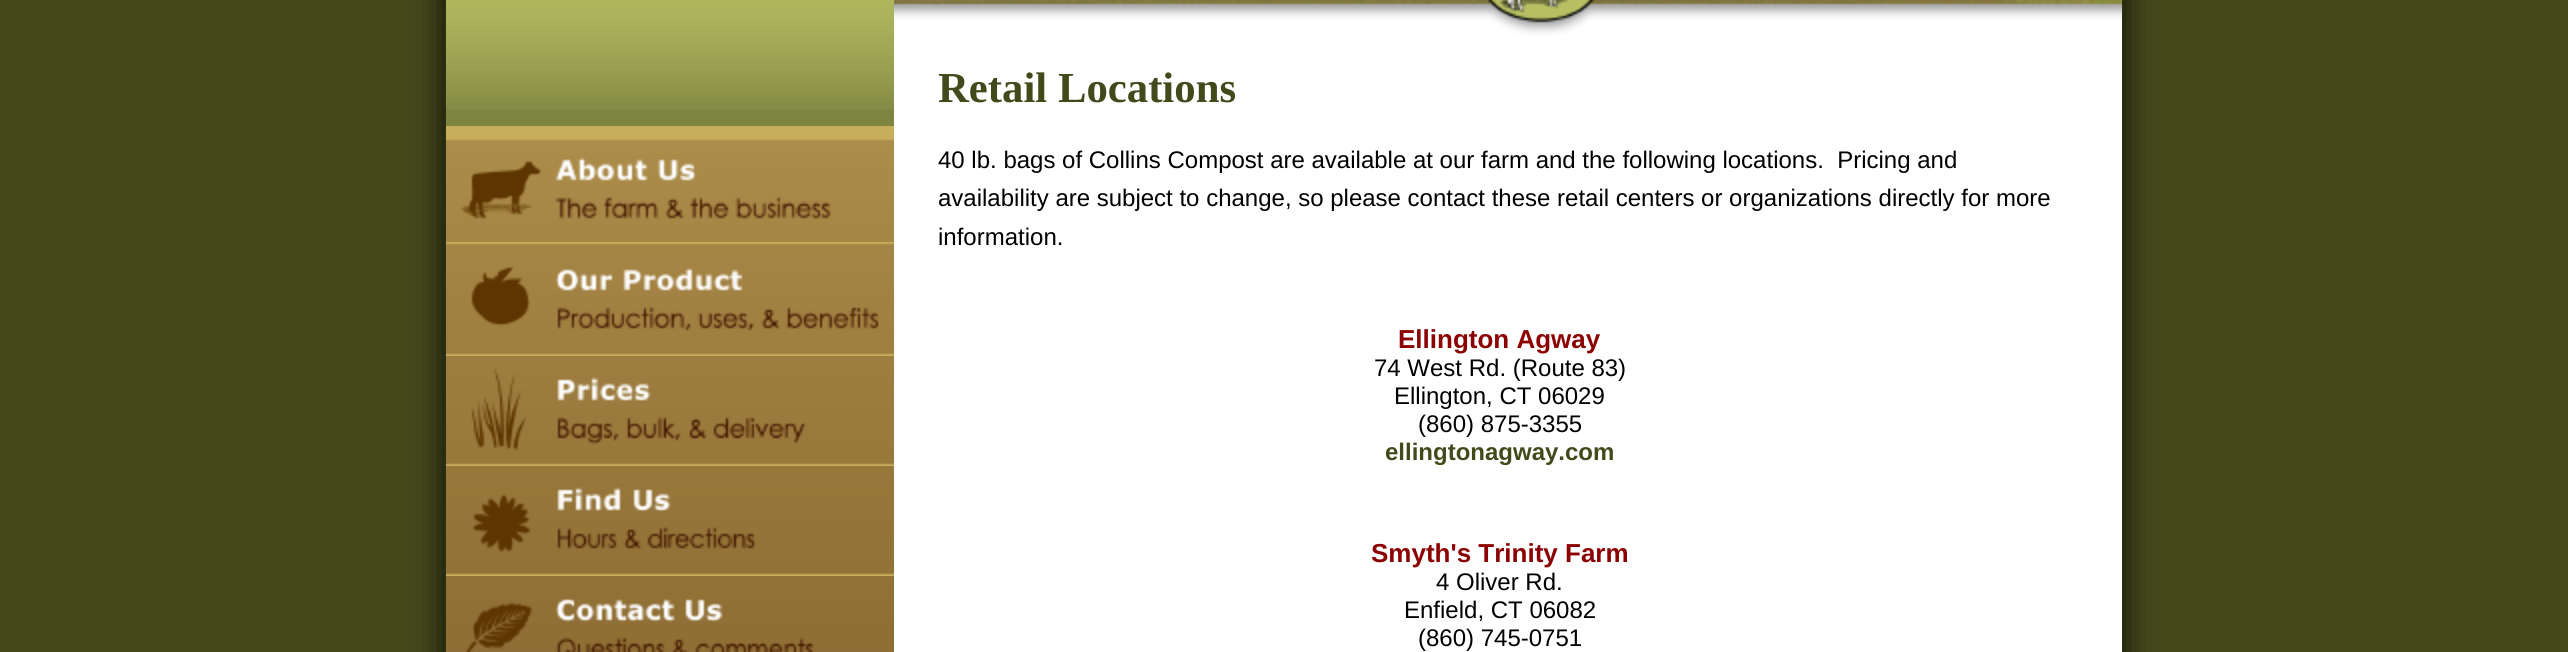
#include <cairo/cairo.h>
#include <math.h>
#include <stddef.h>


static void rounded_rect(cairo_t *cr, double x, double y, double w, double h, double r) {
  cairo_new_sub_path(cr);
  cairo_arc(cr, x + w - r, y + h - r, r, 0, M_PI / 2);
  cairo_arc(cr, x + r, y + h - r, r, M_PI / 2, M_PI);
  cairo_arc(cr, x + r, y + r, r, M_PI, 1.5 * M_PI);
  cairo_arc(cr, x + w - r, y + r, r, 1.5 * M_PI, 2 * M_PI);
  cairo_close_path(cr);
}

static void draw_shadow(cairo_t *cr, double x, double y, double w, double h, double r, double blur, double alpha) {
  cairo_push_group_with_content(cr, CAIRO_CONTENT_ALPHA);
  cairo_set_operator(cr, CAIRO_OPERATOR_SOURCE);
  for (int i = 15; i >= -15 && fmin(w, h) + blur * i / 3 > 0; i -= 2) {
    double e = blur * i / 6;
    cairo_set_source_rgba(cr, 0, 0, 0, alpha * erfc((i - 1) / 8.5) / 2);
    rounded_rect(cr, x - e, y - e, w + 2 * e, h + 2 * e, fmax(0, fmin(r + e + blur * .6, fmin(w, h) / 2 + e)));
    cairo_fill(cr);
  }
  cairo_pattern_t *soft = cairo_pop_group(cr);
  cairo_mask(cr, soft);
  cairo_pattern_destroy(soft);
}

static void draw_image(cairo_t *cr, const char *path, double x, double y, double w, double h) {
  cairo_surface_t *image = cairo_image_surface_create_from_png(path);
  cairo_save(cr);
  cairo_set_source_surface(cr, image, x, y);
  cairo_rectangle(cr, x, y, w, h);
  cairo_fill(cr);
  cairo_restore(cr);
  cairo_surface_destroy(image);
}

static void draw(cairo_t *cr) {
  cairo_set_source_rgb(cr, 68 / 255.0, 73 / 255.0, 28 / 255.0);
  cairo_paint(cr);
  cairo_set_source_rgb(cr, 12 / 255.0, 13 / 255.0, 5 / 255.0);
  draw_shadow(cr, 444, -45, 1680, 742, 0, 15, 1);
  cairo_set_source_rgb(cr, 43 / 255.0, 46 / 255.0, 17 / 255.0);
  cairo_rectangle(cr, 2122, 0, 2, 652);
  cairo_fill(cr);
  cairo_rectangle(cr, 444, 0, 2, 652);
  cairo_fill(cr);
  draw_image(cr, "images/1.png", 446, 0, 448, 36);
  draw_image(cr, "images/2.png", 894, 0, 1228, 36);
  cairo_set_source_rgb(cr, 126 / 255.0, 133 / 255.0, 65 / 255.0);
  cairo_rectangle(cr, 446, 110, 448, 16);
  cairo_fill(cr);
  draw_image(cr, "images/3.png", 446, 36, 448, 74);
  draw_image(cr, "images/4.png", 446, 126, 448, 116);
  draw_image(cr, "images/5.png", 446, 242, 448, 114);
  draw_image(cr, "images/6.png", 446, 356, 448, 110);
  draw_image(cr, "images/7.png", 446, 466, 448, 110);
  draw_image(cr, "images/8.png", 446, 576, 448, 76);
  cairo_set_source_rgb(cr, 1, 1, 1);
  cairo_rectangle(cr, 894, 36, 1228, 616);
  cairo_fill(cr);
  cairo_select_font_face(cr, "Liberation Serif", CAIRO_FONT_SLANT_NORMAL, CAIRO_FONT_WEIGHT_BOLD);
  cairo_set_font_size(cr, 42.75);
  cairo_set_source_rgb(cr, 68 / 255.0, 73 / 255.0, 28 / 255.0);
  cairo_move_to(cr, 938, 102);
  cairo_show_text(cr, "Retail Locations");
  cairo_select_font_face(cr, "Liberation Sans", CAIRO_FONT_SLANT_NORMAL, CAIRO_FONT_WEIGHT_NORMAL);
  cairo_set_font_size(cr, 24);
  cairo_set_source_rgb(cr, 0, 0, 0);
  cairo_move_to(cr, 938, 168);
  cairo_show_text(cr, "40 lb. bags of Collins Compost are available at our farm and the following locations.  Pricing and");
  cairo_move_to(cr, 938, 206);
  cairo_show_text(cr, "availability are subject to change, so please contact these retail centers or organizations directly for more");
  cairo_move_to(cr, 938, 245);
  cairo_show_text(cr, "information.");
  cairo_select_font_face(cr, "Liberation Sans", CAIRO_FONT_SLANT_NORMAL, CAIRO_FONT_WEIGHT_BOLD);
  cairo_set_font_size(cr, 26);
  cairo_set_source_rgb(cr, 140 / 255.0, 1 / 255.0, 1 / 255.0);
  cairo_move_to(cr, 1398, 348);
  cairo_show_text(cr, "Ellington Agway");
  cairo_select_font_face(cr, "Liberation Sans", CAIRO_FONT_SLANT_NORMAL, CAIRO_FONT_WEIGHT_NORMAL);
  cairo_set_font_size(cr, 24);
  cairo_set_source_rgb(cr, 0, 0, 0);
  cairo_move_to(cr, 1374, 376);
  cairo_show_text(cr, "74 West Rd. (Route 83)");
  cairo_move_to(cr, 1394, 404);
  cairo_show_text(cr, "Ellington, CT 06029");
  cairo_move_to(cr, 1418, 432);
  cairo_show_text(cr, "(860) 875-3355");
  cairo_select_font_face(cr, "Liberation Sans", CAIRO_FONT_SLANT_NORMAL, CAIRO_FONT_WEIGHT_BOLD);
  cairo_set_source_rgb(cr, 68 / 255.0, 73 / 255.0, 28 / 255.0);
  cairo_move_to(cr, 1385, 460);
  cairo_show_text(cr, "ellingtonagway.com");
  cairo_set_font_size(cr, 26);
  cairo_set_source_rgb(cr, 140 / 255.0, 1 / 255.0, 1 / 255.0);
  cairo_move_to(cr, 1371, 562);
  cairo_show_text(cr, "Smyth's Trinity Farm");
  cairo_select_font_face(cr, "Liberation Sans", CAIRO_FONT_SLANT_NORMAL, CAIRO_FONT_WEIGHT_NORMAL);
  cairo_set_font_size(cr, 24);
  cairo_set_source_rgb(cr, 0, 0, 0);
  cairo_move_to(cr, 1436, 590);
  cairo_show_text(cr, "4 Oliver Rd.");
  cairo_move_to(cr, 1404, 618);
  cairo_show_text(cr, "Enfield, CT 06082");
  cairo_move_to(cr, 1418, 646);
  cairo_show_text(cr, "(860) 745-0751");
}

int main(void) {
  cairo_surface_t *surface = cairo_image_surface_create(CAIRO_FORMAT_RGB24, 2568, 652);
  cairo_t *cr = cairo_create(surface);
  cairo_font_options_t *options = cairo_font_options_create();
  cairo_font_options_set_hint_metrics(options, CAIRO_HINT_METRICS_OFF);
  cairo_font_options_set_hint_style(options, CAIRO_HINT_STYLE_NONE);
  cairo_set_font_options(cr, options);
  cairo_set_miter_limit(cr, 4);
  draw(cr);
  cairo_surface_write_to_png(surface, "out.png");
  cairo_font_options_destroy(options);
  cairo_destroy(cr);
  cairo_surface_destroy(surface);
  return 0;
}
